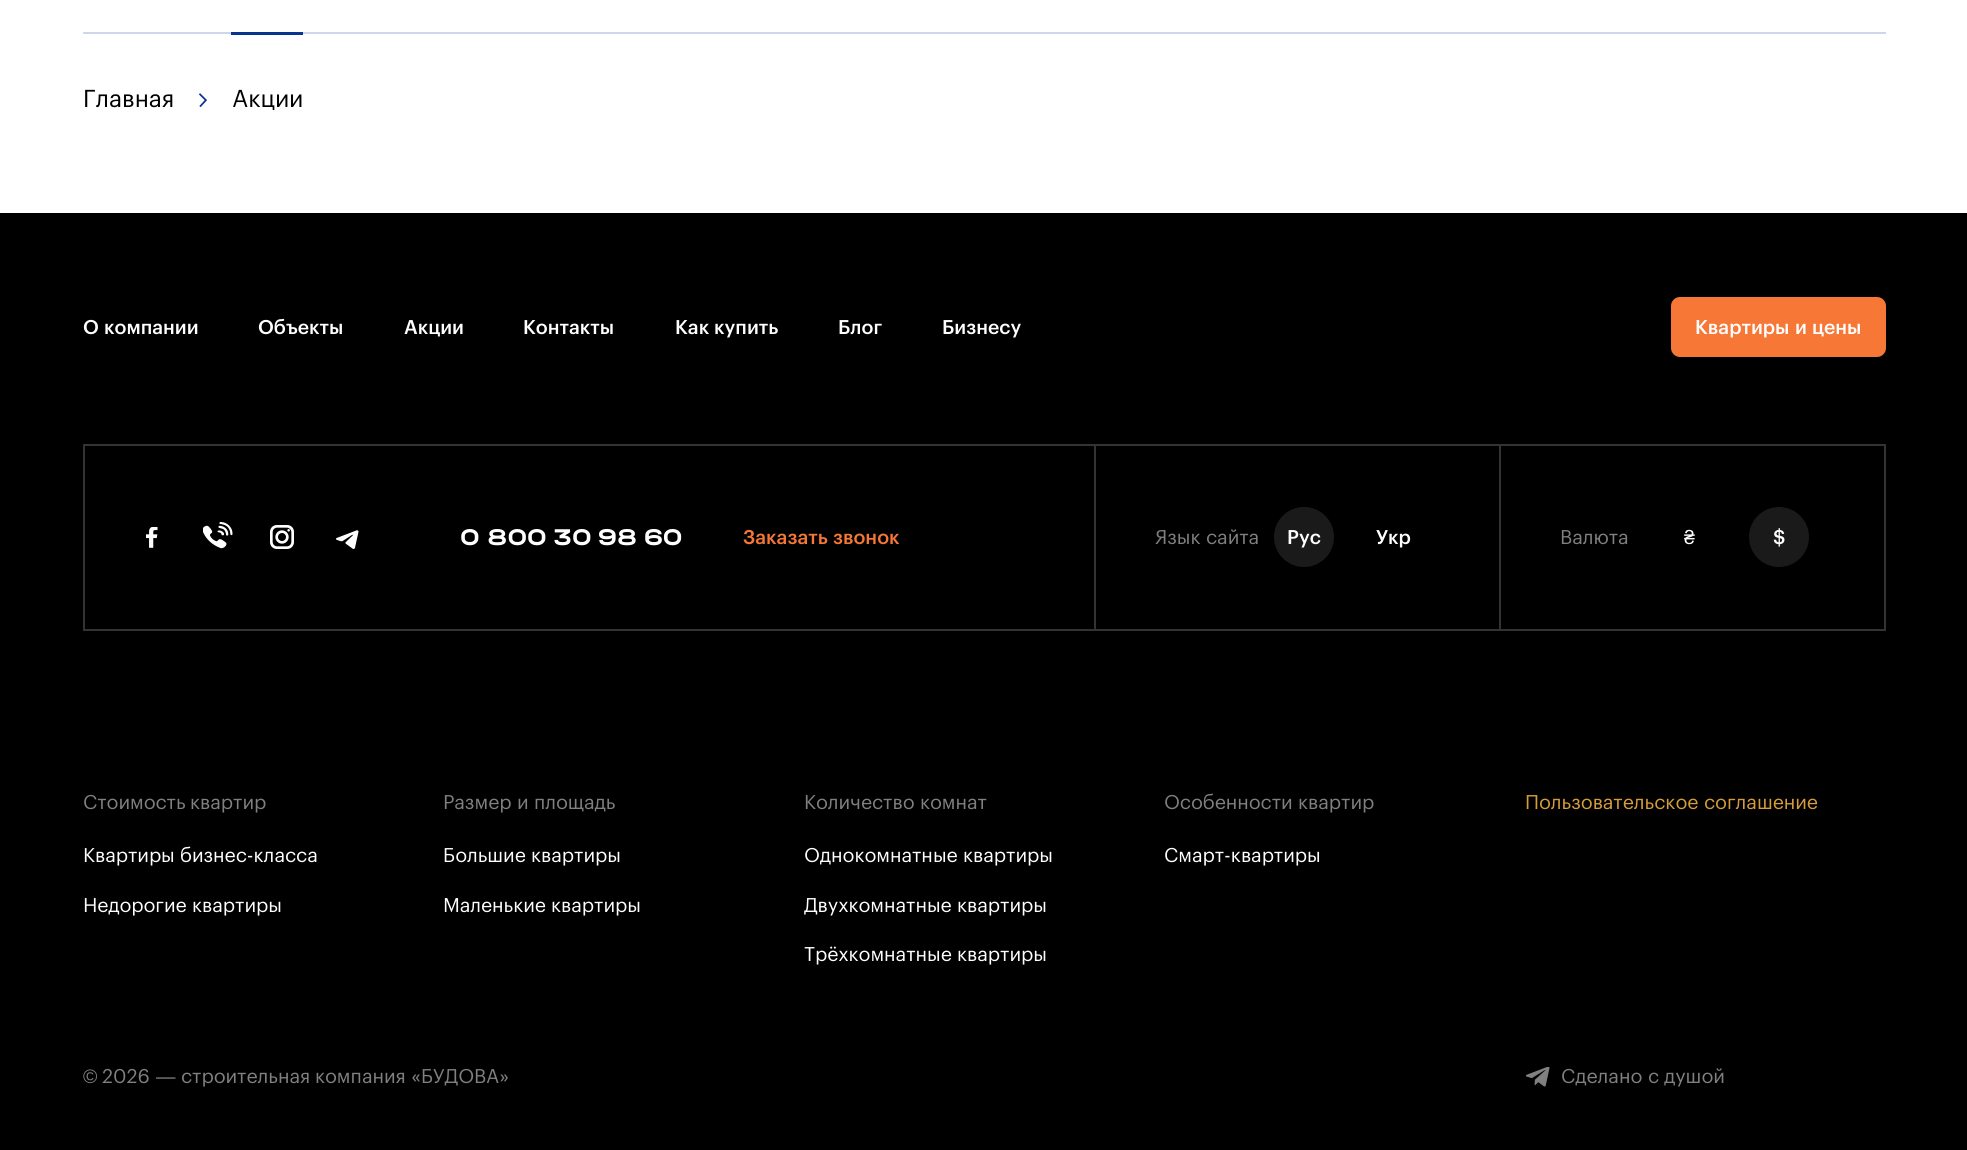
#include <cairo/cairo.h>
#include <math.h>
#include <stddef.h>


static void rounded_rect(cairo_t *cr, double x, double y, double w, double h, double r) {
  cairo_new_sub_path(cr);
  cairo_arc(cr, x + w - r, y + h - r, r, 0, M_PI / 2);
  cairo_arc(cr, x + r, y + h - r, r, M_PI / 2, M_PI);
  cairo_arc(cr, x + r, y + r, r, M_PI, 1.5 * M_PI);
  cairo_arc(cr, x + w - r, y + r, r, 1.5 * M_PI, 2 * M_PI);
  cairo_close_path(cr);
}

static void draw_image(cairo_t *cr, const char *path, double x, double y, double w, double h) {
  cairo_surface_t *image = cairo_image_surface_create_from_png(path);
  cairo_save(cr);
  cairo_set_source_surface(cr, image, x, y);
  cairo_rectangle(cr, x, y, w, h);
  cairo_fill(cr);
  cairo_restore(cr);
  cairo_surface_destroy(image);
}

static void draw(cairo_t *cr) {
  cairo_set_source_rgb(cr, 1, 1, 1);
  cairo_paint(cr);
  cairo_set_source_rgb(cr, 205 / 255.0, 215 / 255.0, 233 / 255.0);
  cairo_rectangle(cr, 83, 32, 1803, 2);
  cairo_fill(cr);
  draw_image(cr, "images/1.png", 198, 93, 9, 15);
  cairo_set_source_rgb(cr, 7 / 255.0, 53 / 255.0, 144 / 255.0);
  cairo_rectangle(cr, 231, 32, 72, 3);
  cairo_fill(cr);
  cairo_set_source_rgb(cr, 0, 0, 0);
  cairo_rectangle(cr, 0, 213, 1967, 937);
  cairo_fill(cr);
  cairo_set_source_rgb(cr, 247 / 255.0, 119 / 255.0, 55 / 255.0);
  rounded_rect(cr, 1671, 297, 215, 60, 9);
  cairo_fill(cr);
  cairo_set_source_rgb(cr, 51 / 255.0, 51 / 255.0, 51 / 255.0);
  cairo_rectangle(cr, 83, 444, 1803, 2);
  cairo_fill(cr);
  cairo_rectangle(cr, 83, 629, 1803, 2);
  cairo_fill(cr);
  cairo_rectangle(cr, 83, 446, 2, 183);
  cairo_fill(cr);
  draw_image(cr, "images/2.png", 146, 527, 12, 21);
  draw_image(cr, "images/3.png", 203, 522, 30, 27);
  draw_image(cr, "images/4.png", 270, 525, 24, 24);
  draw_image(cr, "images/5.png", 336, 530, 23, 19);
  cairo_rectangle(cr, 1094, 446, 2, 183);
  cairo_fill(cr);
  cairo_set_source_rgb(cr, 26 / 255.0, 26 / 255.0, 26 / 255.0);
  cairo_arc(cr, 1304, 537, 30, 0, 2 * M_PI);
  cairo_fill(cr);
  cairo_set_source_rgb(cr, 51 / 255.0, 51 / 255.0, 51 / 255.0);
  cairo_rectangle(cr, 1884, 446, 2, 183);
  cairo_fill(cr);
  cairo_rectangle(cr, 1499, 446, 2, 183);
  cairo_fill(cr);
  cairo_set_source_rgb(cr, 26 / 255.0, 26 / 255.0, 26 / 255.0);
  cairo_arc(cr, 1779, 537, 30, 0, 2 * M_PI);
  cairo_fill(cr);
  draw_image(cr, "images/6.png", 1526, 1067, 24, 20);
  cairo_select_font_face(cr, "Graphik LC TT", CAIRO_FONT_SLANT_NORMAL, CAIRO_FONT_WEIGHT_NORMAL);
  cairo_set_font_size(cr, 24);
  cairo_set_source_rgb(cr, 0, 0, 0);
  cairo_move_to(cr, 83, 107);
  cairo_show_text(cr, "Главная");
  cairo_move_to(cr, 232, 107);
  cairo_show_text(cr, "Акции");
  cairo_select_font_face(cr, "Graphik LC TT Medium", CAIRO_FONT_SLANT_NORMAL, CAIRO_FONT_WEIGHT_NORMAL);
  cairo_set_font_size(cr, 19.5);
  cairo_set_source_rgb(cr, 1, 1, 1);
  cairo_move_to(cr, 83, 334);
  cairo_show_text(cr, "О");
  cairo_move_to(cr, 104, 334);
  cairo_show_text(cr, "компании");
  cairo_move_to(cr, 258, 334);
  cairo_show_text(cr, "Объекты");
  cairo_move_to(cr, 404, 334);
  cairo_show_text(cr, "Акции");
  cairo_move_to(cr, 523, 334);
  cairo_show_text(cr, "Контакты");
  cairo_move_to(cr, 675, 334);
  cairo_show_text(cr, "Как");
  cairo_move_to(cr, 714, 334);
  cairo_show_text(cr, "купить");
  cairo_move_to(cr, 838, 334);
  cairo_show_text(cr, "Блог");
  cairo_move_to(cr, 942, 334);
  cairo_show_text(cr, "Бизнесу");
  cairo_move_to(cr, 1695, 334);
  cairo_show_text(cr, "Квартиры");
  cairo_move_to(cr, 1795, 334);
  cairo_show_text(cr, "и");
  cairo_move_to(cr, 1812, 334);
  cairo_show_text(cr, "цены");
  cairo_select_font_face(cr, "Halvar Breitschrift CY", CAIRO_FONT_SLANT_NORMAL, CAIRO_FONT_WEIGHT_BOLD);
  cairo_set_font_size(cr, 24);
  cairo_move_to(cr, 460, 545);
  cairo_show_text(cr, "0");
  cairo_move_to(cr, 487, 545);
  cairo_show_text(cr, "800");
  cairo_move_to(cr, 553, 545);
  cairo_show_text(cr, "30");
  cairo_move_to(cr, 598, 545);
  cairo_show_text(cr, "98");
  cairo_move_to(cr, 644, 545);
  cairo_show_text(cr, "60");
  cairo_select_font_face(cr, "Graphik LC TT Medium", CAIRO_FONT_SLANT_NORMAL, CAIRO_FONT_WEIGHT_NORMAL);
  cairo_set_font_size(cr, 19.5);
  cairo_set_source_rgb(cr, 247 / 255.0, 119 / 255.0, 55 / 255.0);
  cairo_move_to(cr, 743, 544);
  cairo_show_text(cr, "Заказать");
  cairo_move_to(cr, 833, 544);
  cairo_show_text(cr, "звонок");
  cairo_select_font_face(cr, "Graphik LC TT", CAIRO_FONT_SLANT_NORMAL, CAIRO_FONT_WEIGHT_NORMAL);
  cairo_set_source_rgb(cr, 128 / 255.0, 128 / 255.0, 128 / 255.0);
  cairo_move_to(cr, 1155, 544);
  cairo_show_text(cr, "Язык");
  cairo_move_to(cr, 1206, 544);
  cairo_show_text(cr, "сайта");
  cairo_select_font_face(cr, "Graphik LC TT Medium", CAIRO_FONT_SLANT_NORMAL, CAIRO_FONT_WEIGHT_NORMAL);
  cairo_set_source_rgb(cr, 1, 1, 1);
  cairo_move_to(cr, 1287, 544);
  cairo_show_text(cr, "Рус");
  cairo_move_to(cr, 1376, 544);
  cairo_show_text(cr, "Укр");
  cairo_select_font_face(cr, "Graphik LC TT", CAIRO_FONT_SLANT_NORMAL, CAIRO_FONT_WEIGHT_NORMAL);
  cairo_set_source_rgb(cr, 128 / 255.0, 128 / 255.0, 128 / 255.0);
  cairo_move_to(cr, 1560, 544);
  cairo_show_text(cr, "Валюта");
  cairo_select_font_face(cr, "Liberation Sans", CAIRO_FONT_SLANT_NORMAL, CAIRO_FONT_WEIGHT_NORMAL);
  cairo_set_source_rgb(cr, 1, 1, 1);
  cairo_move_to(cr, 1684, 544);
  cairo_show_text(cr, "₴");
  cairo_select_font_face(cr, "Graphik LC TT Medium", CAIRO_FONT_SLANT_NORMAL, CAIRO_FONT_WEIGHT_NORMAL);
  cairo_move_to(cr, 1773, 544);
  cairo_show_text(cr, "$");
  cairo_select_font_face(cr, "Graphik LC TT", CAIRO_FONT_SLANT_NORMAL, CAIRO_FONT_WEIGHT_NORMAL);
  cairo_set_source_rgb(cr, 128 / 255.0, 128 / 255.0, 128 / 255.0);
  cairo_move_to(cr, 83, 809);
  cairo_show_text(cr, "Стоимость");
  cairo_move_to(cr, 190, 809);
  cairo_show_text(cr, "квартир");
  cairo_set_source_rgb(cr, 1, 1, 1);
  cairo_move_to(cr, 83, 862);
  cairo_show_text(cr, "Квартиры");
  cairo_move_to(cr, 180, 862);
  cairo_show_text(cr, "бизнес-класса");
  cairo_move_to(cr, 83, 912);
  cairo_show_text(cr, "Недорогие");
  cairo_move_to(cr, 192, 912);
  cairo_show_text(cr, "квартиры");
  cairo_set_source_rgb(cr, 128 / 255.0, 128 / 255.0, 128 / 255.0);
  cairo_move_to(cr, 443, 809);
  cairo_show_text(cr, "Размер");
  cairo_move_to(cr, 517, 809);
  cairo_show_text(cr, "и");
  cairo_move_to(cr, 534, 809);
  cairo_show_text(cr, "площадь");
  cairo_set_source_rgb(cr, 1, 1, 1);
  cairo_move_to(cr, 443, 862);
  cairo_show_text(cr, "Большие");
  cairo_move_to(cr, 531, 862);
  cairo_show_text(cr, "квартиры");
  cairo_move_to(cr, 443, 912);
  cairo_show_text(cr, "Маленькие");
  cairo_move_to(cr, 551, 912);
  cairo_show_text(cr, "квартиры");
  cairo_set_source_rgb(cr, 128 / 255.0, 128 / 255.0, 128 / 255.0);
  cairo_move_to(cr, 804, 809);
  cairo_show_text(cr, "Количество");
  cairo_move_to(cr, 920, 809);
  cairo_show_text(cr, "комнат");
  cairo_set_source_rgb(cr, 1, 1, 1);
  cairo_move_to(cr, 804, 862);
  cairo_show_text(cr, "Однокомнатные");
  cairo_move_to(cr, 963, 862);
  cairo_show_text(cr, "квартиры");
  cairo_save(cr);
  cairo_rectangle(cr, 804, 891, 243, 29);
  cairo_clip(cr);
  cairo_move_to(cr, 804, 912);
  cairo_show_text(cr, "Двухкомнатные");
  cairo_restore(cr);
  cairo_move_to(cr, 957, 912);
  cairo_show_text(cr, "квартиры");
  cairo_move_to(cr, 804, 961);
  cairo_show_text(cr, "Трёхкомнатные");
  cairo_move_to(cr, 957, 961);
  cairo_show_text(cr, "квартиры");
  cairo_set_source_rgb(cr, 128 / 255.0, 128 / 255.0, 128 / 255.0);
  cairo_move_to(cr, 1164, 809);
  cairo_show_text(cr, "Особенности");
  cairo_move_to(cr, 1298, 809);
  cairo_show_text(cr, "квартир");
  cairo_set_source_rgb(cr, 1, 1, 1);
  cairo_move_to(cr, 1164, 862);
  cairo_show_text(cr, "Смарт-квартиры");
  cairo_set_source_rgb(cr, 214 / 255.0, 157 / 255.0, 58 / 255.0);
  cairo_move_to(cr, 1525, 809);
  cairo_show_text(cr, "Пользовательское");
  cairo_move_to(cr, 1704, 809);
  cairo_show_text(cr, "соглашение");
  cairo_select_font_face(cr, "Liberation Sans", CAIRO_FONT_SLANT_NORMAL, CAIRO_FONT_WEIGHT_NORMAL);
  cairo_set_source_rgb(cr, 128 / 255.0, 128 / 255.0, 128 / 255.0);
  cairo_move_to(cr, 83, 1083);
  cairo_show_text(cr, "©");
  cairo_select_font_face(cr, "Graphik LC TT", CAIRO_FONT_SLANT_NORMAL, CAIRO_FONT_WEIGHT_NORMAL);
  cairo_move_to(cr, 102, 1083);
  cairo_show_text(cr, "2026");
  cairo_select_font_face(cr, "Liberation Sans", CAIRO_FONT_SLANT_NORMAL, CAIRO_FONT_WEIGHT_NORMAL);
  cairo_move_to(cr, 156, 1083);
  cairo_show_text(cr, "—");
  cairo_select_font_face(cr, "Graphik LC TT", CAIRO_FONT_SLANT_NORMAL, CAIRO_FONT_WEIGHT_NORMAL);
  cairo_move_to(cr, 181, 1083);
  cairo_show_text(cr, "строительная");
  cairo_move_to(cr, 315, 1083);
  cairo_show_text(cr, "компания");
  cairo_move_to(cr, 411, 1083);
  cairo_show_text(cr, "«БУДОВА»");
  cairo_move_to(cr, 1561, 1083);
  cairo_show_text(cr, "Сделано");
  cairo_move_to(cr, 1648, 1083);
  cairo_show_text(cr, "с");
  cairo_move_to(cr, 1664, 1083);
  cairo_show_text(cr, "душой");
}

int main(void) {
  cairo_surface_t *surface = cairo_image_surface_create(CAIRO_FORMAT_RGB24, 1967, 1150);
  cairo_t *cr = cairo_create(surface);
  cairo_font_options_t *options = cairo_font_options_create();
  cairo_font_options_set_hint_metrics(options, CAIRO_HINT_METRICS_OFF);
  cairo_font_options_set_hint_style(options, CAIRO_HINT_STYLE_NONE);
  cairo_set_font_options(cr, options);
  cairo_set_miter_limit(cr, 4);
  draw(cr);
  cairo_surface_write_to_png(surface, "out.png");
  cairo_font_options_destroy(options);
  cairo_destroy(cr);
  cairo_surface_destroy(surface);
  return 0;
}
